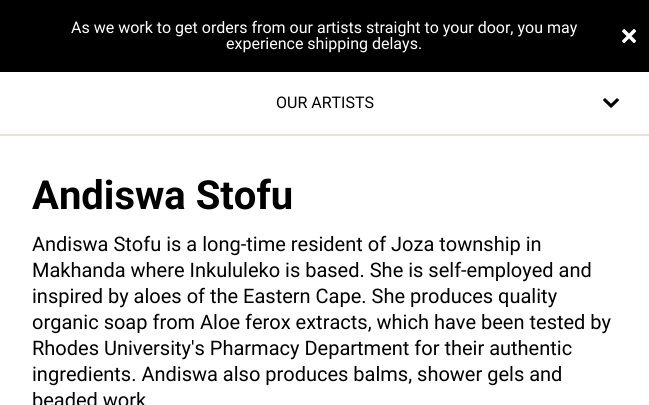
#include <cairo/cairo.h>
#include <math.h>
#include <stddef.h>


static void draw_image(cairo_t *cr, const char *path, double x, double y, double w, double h) {
  cairo_surface_t *image = cairo_image_surface_create_from_png(path);
  cairo_save(cr);
  cairo_set_source_surface(cr, image, x, y);
  cairo_rectangle(cr, x, y, w, h);
  cairo_fill(cr);
  cairo_restore(cr);
  cairo_surface_destroy(image);
}

static void draw(cairo_t *cr) {
  cairo_set_source_rgb(cr, 0, 0, 0);
  cairo_paint(cr);
  draw_image(cr, "images/1.png", 622, 29, 14, 14);
  cairo_set_source_rgb(cr, 1, 1, 1);
  cairo_rectangle(cr, 0, 72, 649, 62);
  cairo_fill(cr);
  cairo_set_source_rgb(cr, 235 / 255.0, 228 / 255.0, 211 / 255.0);
  cairo_rectangle(cr, 0, 134, 649, 2);
  cairo_fill(cr);
  draw_image(cr, "images/2.png", 603, 98, 16, 10);
  cairo_set_source_rgb(cr, 1, 1, 1);
  cairo_rectangle(cr, 0, 136, 649, 269);
  cairo_fill(cr);
  cairo_select_font_face(cr, "Roboto", CAIRO_FONT_SLANT_NORMAL, CAIRO_FONT_WEIGHT_NORMAL);
  cairo_set_font_size(cr, 16);
  cairo_move_to(cr, 71, 33);
  cairo_show_text(cr, "As we work to get orders from our artists straight to your door, you may");
  cairo_move_to(cr, 226, 49);
  cairo_show_text(cr, "experience shipping delays.");
  cairo_set_source_rgb(cr, 0, 0, 0);
  cairo_move_to(cr, 276, 108);
  cairo_show_text(cr, "OUR ARTISTS");
  cairo_select_font_face(cr, "Roboto", CAIRO_FONT_SLANT_NORMAL, CAIRO_FONT_WEIGHT_BOLD);
  cairo_set_font_size(cr, 40);
  cairo_move_to(cr, 32, 209);
  cairo_show_text(cr, "Andiswa Stofu");
  cairo_select_font_face(cr, "Roboto", CAIRO_FONT_SLANT_NORMAL, CAIRO_FONT_WEIGHT_NORMAL);
  cairo_set_font_size(cr, 20);
  cairo_move_to(cr, 32, 251);
  cairo_show_text(cr, "Andiswa Stofu is a long-time resident of Joza township in");
  cairo_move_to(cr, 32, 277);
  cairo_show_text(cr, "Makhanda where Inkululeko is based. She is self-employed and");
  cairo_move_to(cr, 32, 303);
  cairo_show_text(cr, "inspired by aloes of the Eastern Cape. She produces quality");
  cairo_move_to(cr, 32, 329);
  cairo_show_text(cr, "organic soap from Aloe ferox extracts, which have been tested by");
  cairo_move_to(cr, 32, 355);
  cairo_show_text(cr, "Rhodes University's Pharmacy Department for their authentic");
  cairo_move_to(cr, 32, 381);
  cairo_show_text(cr, "ingredients. Andiswa also produces balms, shower gels and");
  cairo_move_to(cr, 32, 407);
  cairo_show_text(cr, "beaded work");
}

int main(void) {
  cairo_surface_t *surface = cairo_image_surface_create(CAIRO_FORMAT_RGB24, 649, 405);
  cairo_t *cr = cairo_create(surface);
  cairo_font_options_t *options = cairo_font_options_create();
  cairo_font_options_set_hint_metrics(options, CAIRO_HINT_METRICS_OFF);
  cairo_font_options_set_hint_style(options, CAIRO_HINT_STYLE_NONE);
  cairo_set_font_options(cr, options);
  cairo_set_miter_limit(cr, 4);
  draw(cr);
  cairo_surface_write_to_png(surface, "out.png");
  cairo_font_options_destroy(options);
  cairo_destroy(cr);
  cairo_surface_destroy(surface);
  return 0;
}
